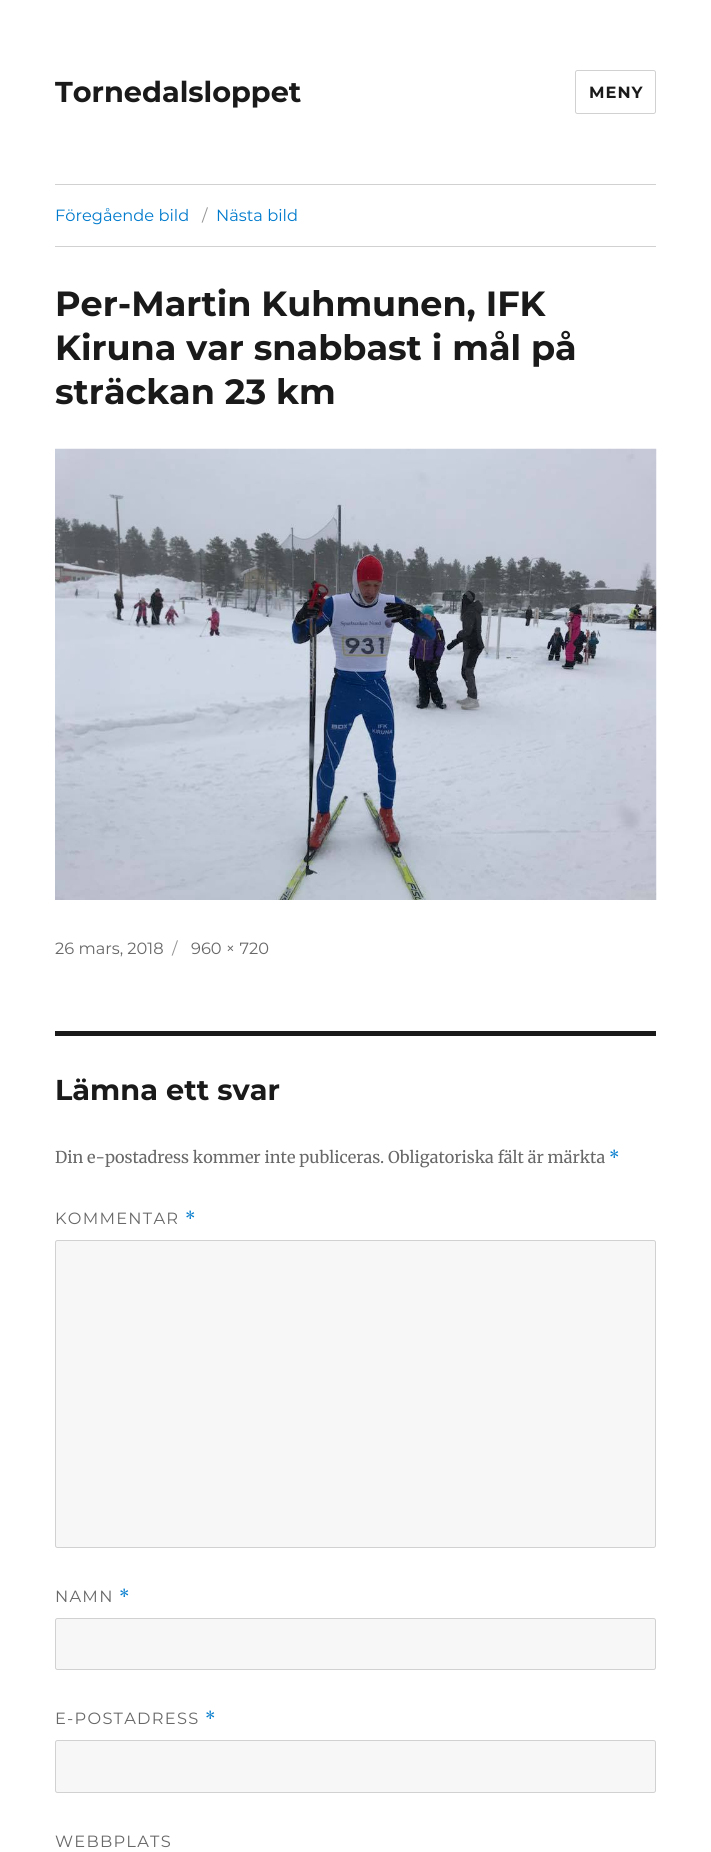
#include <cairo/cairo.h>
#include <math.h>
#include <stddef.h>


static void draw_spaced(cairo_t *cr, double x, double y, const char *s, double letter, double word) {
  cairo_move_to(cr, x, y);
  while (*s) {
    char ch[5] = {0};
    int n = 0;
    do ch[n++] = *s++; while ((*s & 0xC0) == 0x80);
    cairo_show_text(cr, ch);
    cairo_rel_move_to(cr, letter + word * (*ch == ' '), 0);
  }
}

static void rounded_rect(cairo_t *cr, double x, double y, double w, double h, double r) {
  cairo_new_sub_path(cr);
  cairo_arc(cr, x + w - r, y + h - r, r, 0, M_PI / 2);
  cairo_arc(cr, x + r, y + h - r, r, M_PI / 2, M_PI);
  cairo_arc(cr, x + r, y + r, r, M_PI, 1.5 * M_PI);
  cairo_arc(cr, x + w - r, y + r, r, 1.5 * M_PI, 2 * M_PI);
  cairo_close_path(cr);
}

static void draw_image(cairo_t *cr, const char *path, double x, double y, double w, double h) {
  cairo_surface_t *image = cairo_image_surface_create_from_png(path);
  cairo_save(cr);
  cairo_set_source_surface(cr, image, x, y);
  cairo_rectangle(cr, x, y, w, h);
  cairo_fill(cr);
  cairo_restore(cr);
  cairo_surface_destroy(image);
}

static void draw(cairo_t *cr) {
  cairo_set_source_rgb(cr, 1, 1, 1);
  cairo_paint(cr);
  rounded_rect(cr, 575.5, 70.5, 80, 43, 2);
  cairo_set_source_rgb(cr, 209 / 255.0, 209 / 255.0, 209 / 255.0);
  cairo_set_line_width(cr, 1);
  cairo_stroke(cr);
  cairo_rectangle(cr, 55, 184, 601, 1);
  cairo_fill(cr);
  cairo_rectangle(cr, 55, 246, 601, 1);
  cairo_fill(cr);
  draw_image(cr, "images/1.png", 55, 448, 602, 452);
  cairo_set_source_rgb(cr, 26 / 255.0, 26 / 255.0, 26 / 255.0);
  cairo_rectangle(cr, 55, 1031, 601, 5);
  cairo_fill(cr);
  cairo_set_source_rgb(cr, 247 / 255.0, 247 / 255.0, 247 / 255.0);
  rounded_rect(cr, 55.5, 1240.5, 600, 307, 2);
  cairo_fill_preserve(cr);
  cairo_set_source_rgb(cr, 209 / 255.0, 209 / 255.0, 209 / 255.0);
  cairo_stroke(cr);
  cairo_set_source_rgb(cr, 247 / 255.0, 247 / 255.0, 247 / 255.0);
  rounded_rect(cr, 55.5, 1618.5, 600, 51, 2);
  cairo_fill_preserve(cr);
  cairo_set_source_rgb(cr, 209 / 255.0, 209 / 255.0, 209 / 255.0);
  cairo_stroke(cr);
  cairo_set_source_rgb(cr, 247 / 255.0, 247 / 255.0, 247 / 255.0);
  rounded_rect(cr, 55.5, 1740.5, 600, 52, 2);
  cairo_fill_preserve(cr);
  cairo_set_source_rgb(cr, 209 / 255.0, 209 / 255.0, 209 / 255.0);
  cairo_stroke(cr);
  cairo_save(cr);
  cairo_rectangle(cr, 55, 75, 246, 35);
  cairo_clip(cr);
  cairo_select_font_face(cr, "Montserrat", CAIRO_FONT_SLANT_NORMAL, CAIRO_FONT_WEIGHT_BOLD);
  cairo_set_font_size(cr, 28.75);
  cairo_set_source_rgb(cr, 26 / 255.0, 26 / 255.0, 26 / 255.0);
  cairo_move_to(cr, 55, 102);
  cairo_show_text(cr, "Tornedalsloppet");
  cairo_restore(cr);
  cairo_select_font_face(cr, "Montserrat", CAIRO_FONT_SLANT_NORMAL, CAIRO_FONT_WEIGHT_BOLD);
  cairo_set_font_size(cr, 16.25);
  cairo_set_source_rgb(cr, 26 / 255.0, 26 / 255.0, 26 / 255.0);
  draw_spaced(cr, 589, 98, "MENY", 1, 0);
  cairo_select_font_face(cr, "Montserrat", CAIRO_FONT_SLANT_NORMAL, CAIRO_FONT_WEIGHT_NORMAL);
  cairo_set_source_rgb(cr, 0, 122 / 255.0, 204 / 255.0);
  cairo_move_to(cr, 55, 221);
  cairo_show_text(cr, "Föregående bild");
  cairo_set_source_rgb(cr, 149 / 255.0, 149 / 255.0, 149 / 255.0);
  cairo_move_to(cr, 202, 221);
  cairo_show_text(cr, "/");
  cairo_set_source_rgb(cr, 0, 122 / 255.0, 204 / 255.0);
  cairo_move_to(cr, 216, 221);
  cairo_show_text(cr, "Nästa bild");
  cairo_select_font_face(cr, "Montserrat", CAIRO_FONT_SLANT_NORMAL, CAIRO_FONT_WEIGHT_BOLD);
  cairo_set_font_size(cr, 35);
  cairo_set_source_rgb(cr, 26 / 255.0, 26 / 255.0, 26 / 255.0);
  cairo_move_to(cr, 55, 316);
  cairo_show_text(cr, "Per-Martin Kuhmunen, IFK");
  cairo_move_to(cr, 55, 360);
  cairo_show_text(cr, "Kiruna var snabbast i mål på");
  cairo_move_to(cr, 55, 404);
  cairo_show_text(cr, "sträckan 23 km");
  cairo_select_font_face(cr, "Montserrat", CAIRO_FONT_SLANT_NORMAL, CAIRO_FONT_WEIGHT_NORMAL);
  cairo_set_font_size(cr, 16.25);
  cairo_set_source_rgb(cr, 104 / 255.0, 104 / 255.0, 104 / 255.0);
  cairo_move_to(cr, 55, 954);
  cairo_show_text(cr, "26 mars, 2018");
  cairo_set_source_rgb(cr, 149 / 255.0, 149 / 255.0, 149 / 255.0);
  cairo_move_to(cr, 172, 954);
  cairo_show_text(cr, "/");
  cairo_set_source_rgb(cr, 104 / 255.0, 104 / 255.0, 104 / 255.0);
  cairo_move_to(cr, 191, 954);
  cairo_show_text(cr, "960 × 720");
  cairo_select_font_face(cr, "Montserrat", CAIRO_FONT_SLANT_NORMAL, CAIRO_FONT_WEIGHT_BOLD);
  cairo_set_font_size(cr, 28.75);
  cairo_set_source_rgb(cr, 26 / 255.0, 26 / 255.0, 26 / 255.0);
  cairo_move_to(cr, 55, 1100);
  cairo_show_text(cr, "Lämna ett svar");
  cairo_select_font_face(cr, "Merriweather", CAIRO_FONT_SLANT_NORMAL, CAIRO_FONT_WEIGHT_NORMAL);
  cairo_set_font_size(cr, 16.25);
  cairo_set_source_rgb(cr, 104 / 255.0, 104 / 255.0, 104 / 255.0);
  cairo_move_to(cr, 55, 1163);
  cairo_show_text(cr, "Din e-postadress kommer inte publiceras. Obligatoriska fält är märkta");
  cairo_set_source_rgb(cr, 0, 122 / 255.0, 204 / 255.0);
  cairo_move_to(cr, 609, 1163);
  cairo_show_text(cr, "*");
  cairo_select_font_face(cr, "Montserrat", CAIRO_FONT_SLANT_NORMAL, CAIRO_FONT_WEIGHT_NORMAL);
  cairo_set_source_rgb(cr, 104 / 255.0, 104 / 255.0, 104 / 255.0);
  draw_spaced(cr, 55, 1224, "KOMMENTAR", 1.25, 0);
  cairo_select_font_face(cr, "Merriweather", CAIRO_FONT_SLANT_NORMAL, CAIRO_FONT_WEIGHT_NORMAL);
  cairo_set_source_rgb(cr, 0, 122 / 255.0, 204 / 255.0);
  draw_spaced(cr, 185, 1224, "*", 1.25, 0);
  cairo_select_font_face(cr, "Montserrat", CAIRO_FONT_SLANT_NORMAL, CAIRO_FONT_WEIGHT_NORMAL);
  cairo_set_source_rgb(cr, 104 / 255.0, 104 / 255.0, 104 / 255.0);
  draw_spaced(cr, 55, 1602, "NAMN", 1.25, 0);
  cairo_select_font_face(cr, "Merriweather", CAIRO_FONT_SLANT_NORMAL, CAIRO_FONT_WEIGHT_NORMAL);
  cairo_set_source_rgb(cr, 0, 122 / 255.0, 204 / 255.0);
  draw_spaced(cr, 119, 1602, "*", 1.25, 0);
  cairo_select_font_face(cr, "Montserrat", CAIRO_FONT_SLANT_NORMAL, CAIRO_FONT_WEIGHT_NORMAL);
  cairo_set_source_rgb(cr, 104 / 255.0, 104 / 255.0, 104 / 255.0);
  draw_spaced(cr, 55, 1724, "E-POSTADRESS", 1.25, 0);
  cairo_select_font_face(cr, "Merriweather", CAIRO_FONT_SLANT_NORMAL, CAIRO_FONT_WEIGHT_NORMAL);
  cairo_set_source_rgb(cr, 0, 122 / 255.0, 204 / 255.0);
  draw_spaced(cr, 205, 1724, "*", 1.25, 0);
  cairo_select_font_face(cr, "Montserrat", CAIRO_FONT_SLANT_NORMAL, CAIRO_FONT_WEIGHT_NORMAL);
  cairo_set_source_rgb(cr, 104 / 255.0, 104 / 255.0, 104 / 255.0);
  draw_spaced(cr, 55, 1847, "WEBBPLATS", 1.25, 0);
}

int main(void) {
  cairo_surface_t *surface = cairo_image_surface_create(CAIRO_FORMAT_RGB24, 711, 1852);
  cairo_t *cr = cairo_create(surface);
  cairo_font_options_t *options = cairo_font_options_create();
  cairo_font_options_set_hint_metrics(options, CAIRO_HINT_METRICS_OFF);
  cairo_font_options_set_hint_style(options, CAIRO_HINT_STYLE_NONE);
  cairo_set_font_options(cr, options);
  cairo_set_miter_limit(cr, 4);
  draw(cr);
  cairo_surface_write_to_png(surface, "out.png");
  cairo_font_options_destroy(options);
  cairo_destroy(cr);
  cairo_surface_destroy(surface);
  return 0;
}
